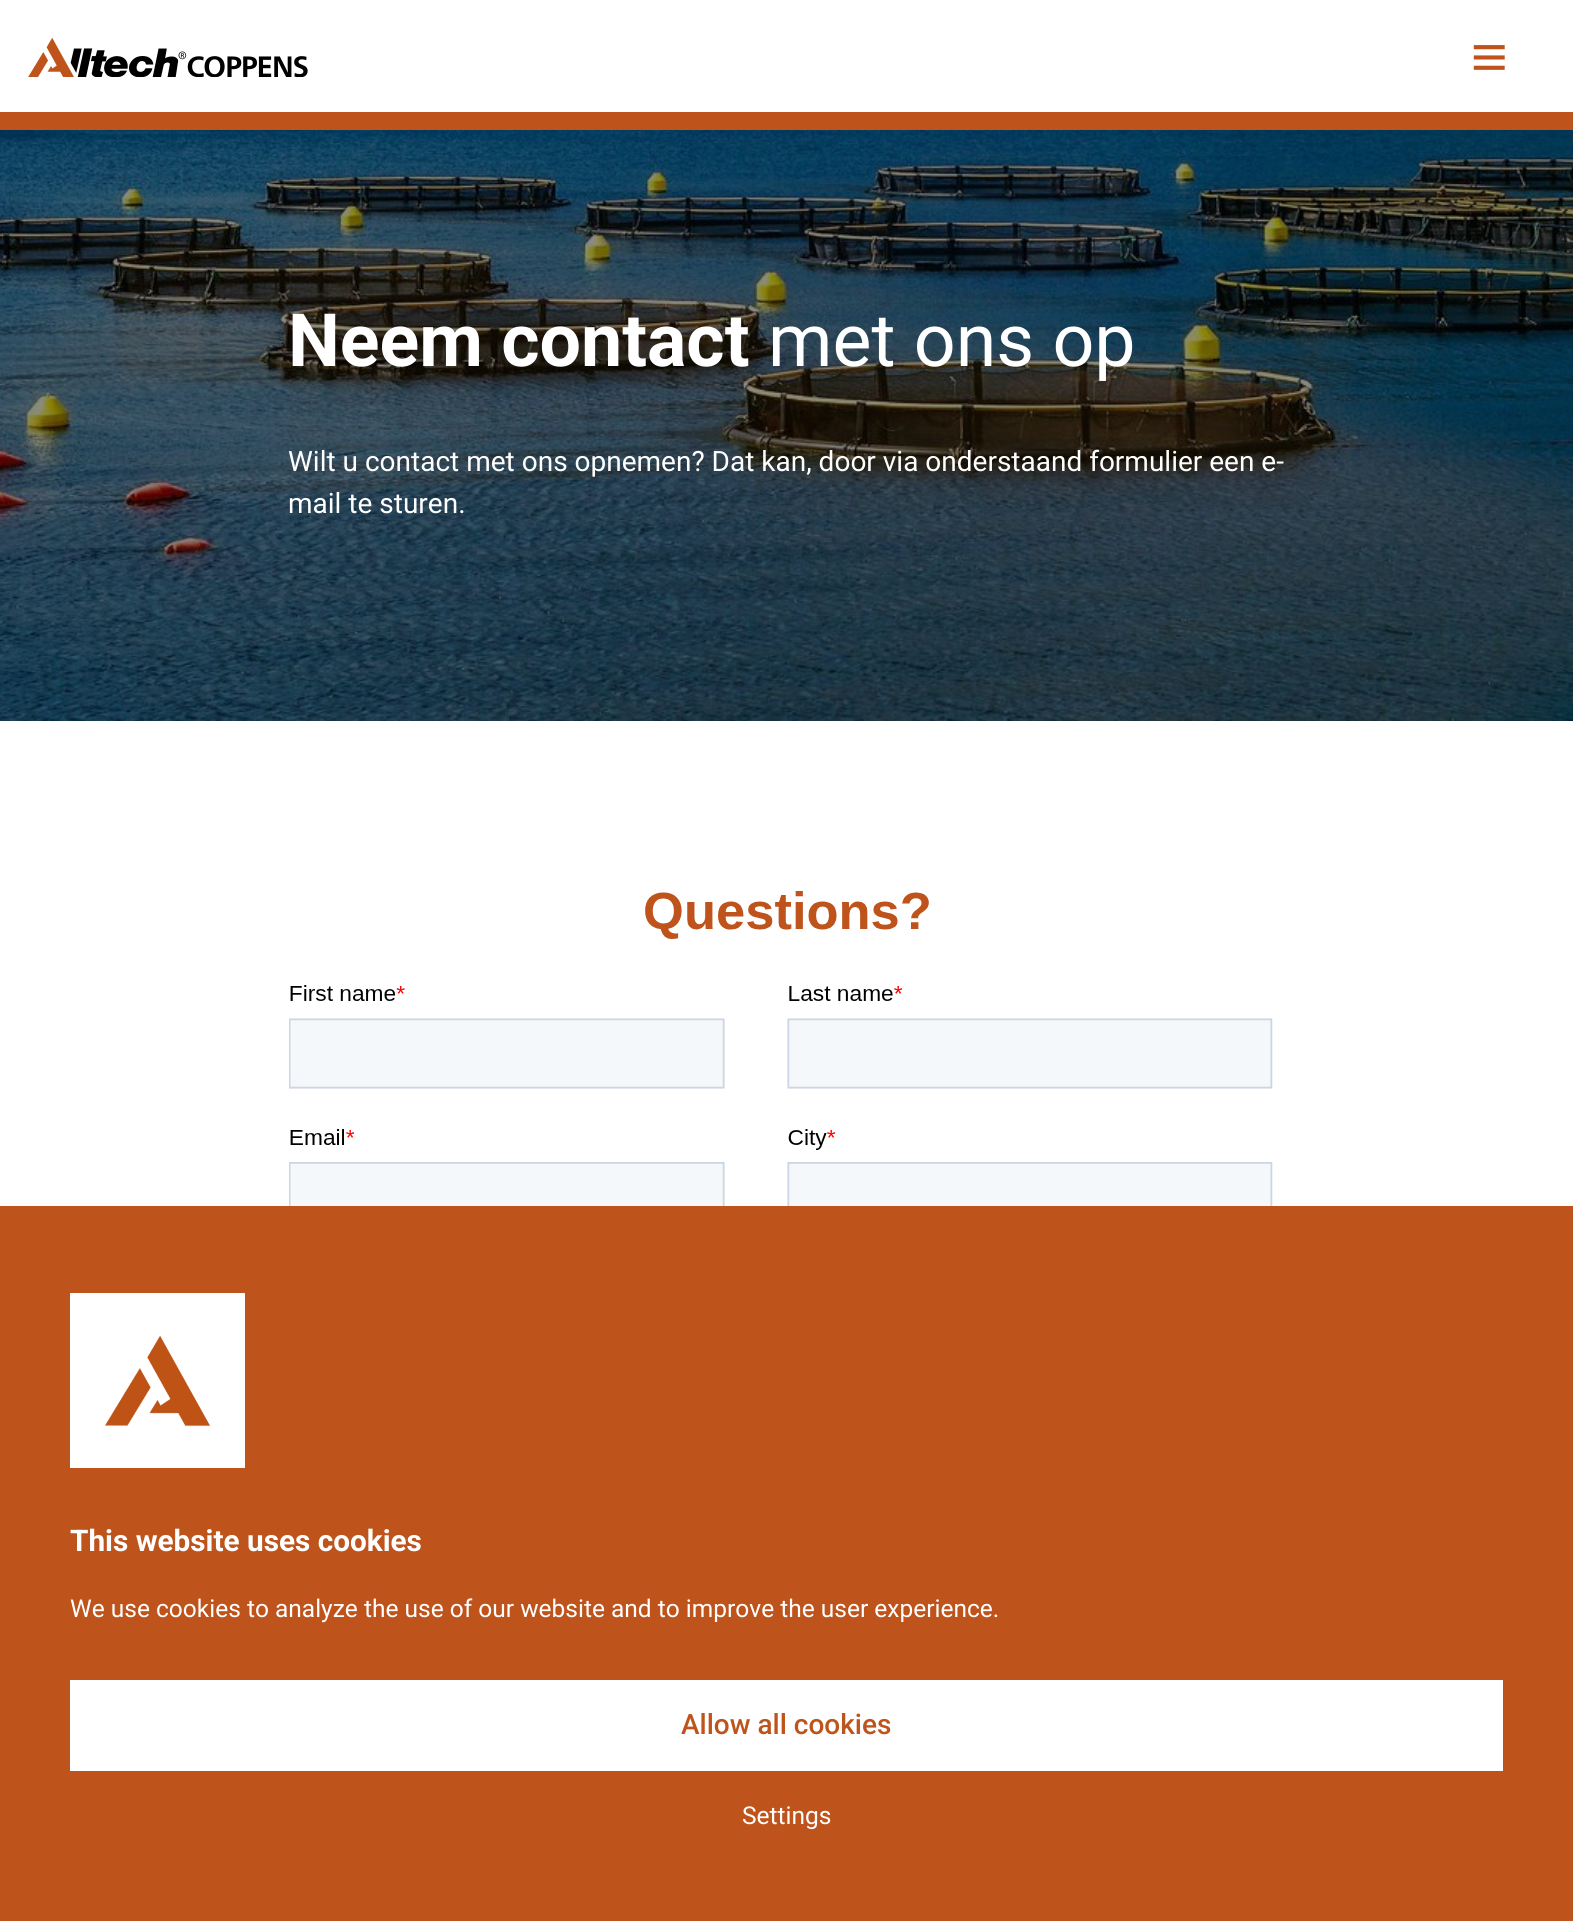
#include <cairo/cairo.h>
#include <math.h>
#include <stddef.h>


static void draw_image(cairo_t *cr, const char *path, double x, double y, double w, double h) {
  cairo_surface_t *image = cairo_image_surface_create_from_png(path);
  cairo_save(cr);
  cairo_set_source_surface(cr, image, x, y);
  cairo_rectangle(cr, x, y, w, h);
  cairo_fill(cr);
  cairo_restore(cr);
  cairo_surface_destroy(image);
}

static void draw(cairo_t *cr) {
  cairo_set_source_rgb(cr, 1, 1, 1);
  cairo_paint(cr);
  draw_image(cr, "images/1.png", 28, 37, 280, 40);
  draw_image(cr, "images/2.png", 1473, 45, 32, 25);
  cairo_set_source_rgb(cr, 190 / 255.0, 83 / 255.0, 28 / 255.0);
  cairo_rectangle(cr, 0, 112, 1573, 18);
  cairo_fill(cr);
  draw_image(cr, "images/3.png", 0, 130, 1573, 591);
  draw_image(cr, "images/4.png", 289, 891, 984, 315);
  cairo_rectangle(cr, 0, 1206, 1573, 715);
  cairo_fill(cr);
  cairo_set_source_rgb(cr, 1, 1, 1);
  cairo_rectangle(cr, 70, 1293, 175, 175);
  cairo_fill(cr);
  draw_image(cr, "images/5.png", 105, 1336, 105, 91);
  cairo_rectangle(cr, 70, 1680, 1433, 91);
  cairo_fill(cr);
  cairo_select_font_face(cr, "Roboto", CAIRO_FONT_SLANT_NORMAL, CAIRO_FONT_WEIGHT_BOLD);
  cairo_set_font_size(cr, 73.5);
  cairo_move_to(cr, 288, 366);
  cairo_show_text(cr, "Neem contact");
  cairo_select_font_face(cr, "Roboto", CAIRO_FONT_SLANT_NORMAL, CAIRO_FONT_WEIGHT_NORMAL);
  cairo_move_to(cr, 768, 366);
  cairo_show_text(cr, "met ons op");
  cairo_set_font_size(cr, 28);
  cairo_move_to(cr, 288, 471);
  cairo_show_text(cr, "Wilt u contact met ons opnemen? Dat kan, door via onderstaand formulier een e-");
  cairo_move_to(cr, 288, 513);
  cairo_show_text(cr, "mail te sturen.");
  cairo_select_font_face(cr, "Roboto", CAIRO_FONT_SLANT_NORMAL, CAIRO_FONT_WEIGHT_BOLD);
  cairo_set_font_size(cr, 29.75);
  cairo_move_to(cr, 70, 1551);
  cairo_show_text(cr, "This website uses cookies");
  cairo_select_font_face(cr, "Roboto", CAIRO_FONT_SLANT_NORMAL, CAIRO_FONT_WEIGHT_NORMAL);
  cairo_set_font_size(cr, 24.5);
  cairo_move_to(cr, 70, 1617);
  cairo_show_text(cr, "We use cookies to analyze the use of our website and to improve the user experience.");
  cairo_select_font_face(cr, "Roboto Medium", CAIRO_FONT_SLANT_NORMAL, CAIRO_FONT_WEIGHT_NORMAL);
  cairo_set_font_size(cr, 28);
  cairo_set_source_rgb(cr, 190 / 255.0, 83 / 255.0, 28 / 255.0);
  cairo_move_to(cr, 681, 1734);
  cairo_show_text(cr, "Allow all cookies");
  cairo_select_font_face(cr, "Roboto", CAIRO_FONT_SLANT_NORMAL, CAIRO_FONT_WEIGHT_NORMAL);
  cairo_set_font_size(cr, 24.5);
  cairo_set_source_rgb(cr, 1, 1, 1);
  cairo_move_to(cr, 742, 1824);
  cairo_show_text(cr, "Settings");
}

int main(void) {
  cairo_surface_t *surface = cairo_image_surface_create(CAIRO_FORMAT_RGB24, 1573, 1921);
  cairo_t *cr = cairo_create(surface);
  cairo_font_options_t *options = cairo_font_options_create();
  cairo_font_options_set_hint_metrics(options, CAIRO_HINT_METRICS_OFF);
  cairo_font_options_set_hint_style(options, CAIRO_HINT_STYLE_NONE);
  cairo_set_font_options(cr, options);
  cairo_set_miter_limit(cr, 4);
  draw(cr);
  cairo_surface_write_to_png(surface, "out.png");
  cairo_font_options_destroy(options);
  cairo_destroy(cr);
  cairo_surface_destroy(surface);
  return 0;
}
